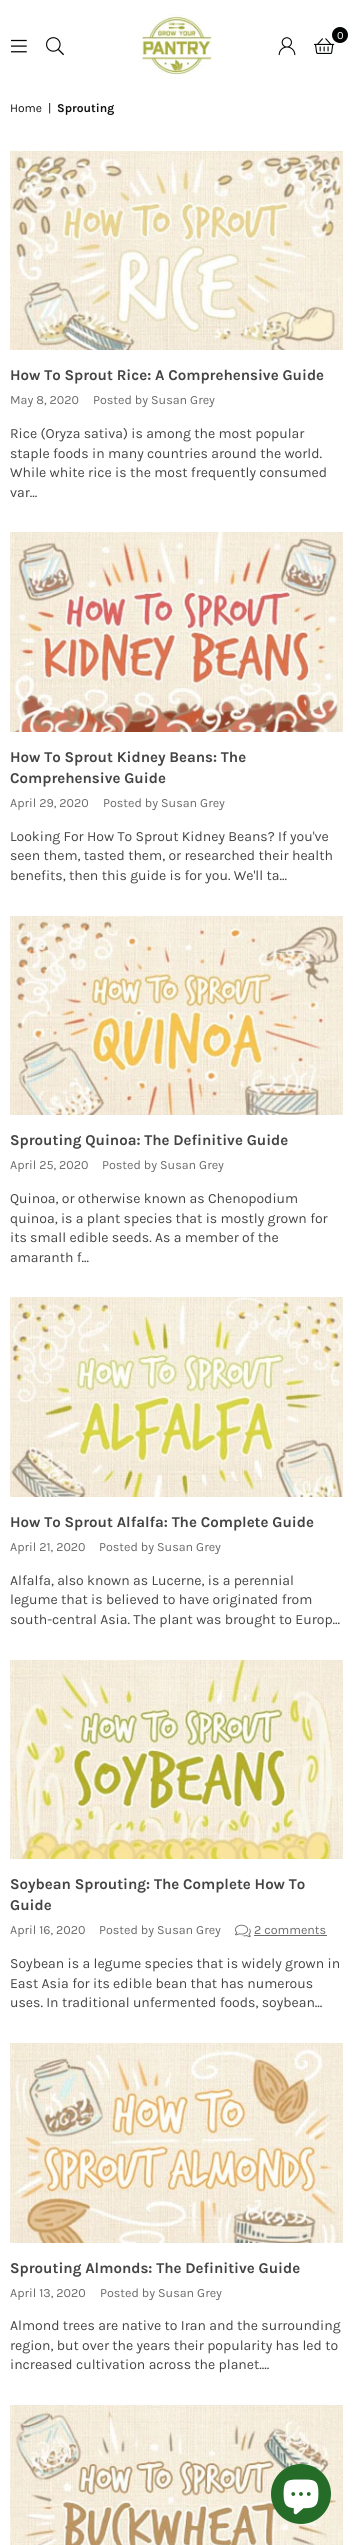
#include <cairo/cairo.h>
#include <math.h>
#include <stddef.h>


static void draw_image(cairo_t *cr, const char *path, double x, double y, double w, double h) {
  cairo_surface_t *image = cairo_image_surface_create_from_png(path);
  cairo_save(cr);
  cairo_set_source_surface(cr, image, x, y);
  cairo_rectangle(cr, x, y, w, h);
  cairo_fill(cr);
  cairo_restore(cr);
  cairo_surface_destroy(image);
}

static void draw(cairo_t *cr) {
  cairo_set_source_rgb(cr, 1, 1, 1);
  cairo_paint(cr);
  draw_image(cr, "images/1.png", 139, 14, 73, 65);
  draw_image(cr, "images/2.png", 314, 38, 21, 16);
  cairo_set_source_rgb(cr, 3 / 255.0, 5 / 255.0, 5 / 255.0);
  cairo_arc(cr, 340, 35, 8, 0, 2 * M_PI);
  cairo_fill(cr);
  draw_image(cr, "images/3.png", 278, 37, 18, 19);
  draw_image(cr, "images/4.png", 11, 39, 16, 14);
  draw_image(cr, "images/5.png", 46, 37, 18, 19);
  draw_image(cr, "images/6.png", 10, 151, 333, 199);
  draw_image(cr, "images/7.png", 10, 532, 333, 200);
  draw_image(cr, "images/8.png", 10, 916, 333, 199);
  draw_image(cr, "images/9.png", 10, 1297, 333, 200);
  draw_image(cr, "images/10.png", 10, 1660, 333, 199);
  draw_image(cr, "images/11.png", 235, 1924, 16, 13);
  cairo_set_source_rgb(cr, 105 / 255.0, 105 / 255.0, 105 / 255.0);
  cairo_rectangle(cr, 254, 1935, 73, 1);
  cairo_fill(cr);
  draw_image(cr, "images/12.png", 10, 2043, 333, 200);
  draw_image(cr, "images/13.png", 10, 2405, 333, 140);
  cairo_set_source_rgb(cr, 37 / 255.0, 108 / 255.0, 40 / 255.0);
  cairo_arc(cr, 301, 2494, 30, 0, 2 * M_PI);
  cairo_fill(cr);
  draw_image(cr, "images/14.png", 283, 2479, 36, 36);
  cairo_select_font_face(cr, "Karla", CAIRO_FONT_SLANT_NORMAL, CAIRO_FONT_WEIGHT_NORMAL);
  cairo_set_font_size(cr, 11);
  cairo_set_source_rgb(cr, 1, 1, 1);
  cairo_move_to(cr, 337, 39);
  cairo_show_text(cr, "0");
  cairo_set_font_size(cr, 12);
  cairo_set_source_rgb(cr, 17 / 255.0, 17 / 255.0, 17 / 255.0);
  cairo_move_to(cr, 10, 112);
  cairo_show_text(cr, "Home");
  cairo_move_to(cr, 48, 112);
  cairo_show_text(cr, "|");
  cairo_select_font_face(cr, "Karla", CAIRO_FONT_SLANT_NORMAL, CAIRO_FONT_WEIGHT_BOLD);
  cairo_move_to(cr, 57, 112);
  cairo_show_text(cr, "Sprouting");
  cairo_set_font_size(cr, 15);
  cairo_set_source_rgb(cr, 68 / 255.0, 68 / 255.0, 68 / 255.0);
  cairo_move_to(cr, 10, 380);
  cairo_show_text(cr, "How To Sprout Rice: A Comprehensive Guide");
  cairo_select_font_face(cr, "Karla", CAIRO_FONT_SLANT_NORMAL, CAIRO_FONT_WEIGHT_NORMAL);
  cairo_set_font_size(cr, 12.5);
  cairo_set_source_rgb(cr, 105 / 255.0, 105 / 255.0, 105 / 255.0);
  cairo_move_to(cr, 10, 404);
  cairo_show_text(cr, "May 8, 2020");
  cairo_move_to(cr, 93, 404);
  cairo_show_text(cr, "Posted by Susan Grey");
  cairo_set_font_size(cr, 14);
  cairo_set_source_rgb(cr, 68 / 255.0, 68 / 255.0, 68 / 255.0);
  cairo_move_to(cr, 10, 438);
  cairo_show_text(cr, "Rice (Oryza sativa) is among the most popular");
  cairo_move_to(cr, 10, 458);
  cairo_show_text(cr, "staple foods in many countries around the world.");
  cairo_move_to(cr, 10, 477);
  cairo_show_text(cr, "While white rice is the most frequently consumed");
  cairo_move_to(cr, 10, 497);
  cairo_show_text(cr, "var...");
  cairo_select_font_face(cr, "Karla", CAIRO_FONT_SLANT_NORMAL, CAIRO_FONT_WEIGHT_BOLD);
  cairo_set_font_size(cr, 15);
  cairo_move_to(cr, 10, 762);
  cairo_show_text(cr, "How To Sprout Kidney Beans: The");
  cairo_move_to(cr, 10, 783);
  cairo_show_text(cr, "Comprehensive Guide");
  cairo_select_font_face(cr, "Karla", CAIRO_FONT_SLANT_NORMAL, CAIRO_FONT_WEIGHT_NORMAL);
  cairo_set_font_size(cr, 12.5);
  cairo_set_source_rgb(cr, 105 / 255.0, 105 / 255.0, 105 / 255.0);
  cairo_move_to(cr, 10, 807);
  cairo_show_text(cr, "April 29, 2020");
  cairo_move_to(cr, 103, 807);
  cairo_show_text(cr, "Posted by Susan Grey");
  cairo_set_font_size(cr, 14);
  cairo_set_source_rgb(cr, 68 / 255.0, 68 / 255.0, 68 / 255.0);
  cairo_move_to(cr, 10, 841);
  cairo_show_text(cr, "Looking For How To Sprout Kidney Beans? If you've");
  cairo_move_to(cr, 10, 860);
  cairo_show_text(cr, "seen them, tasted them, or researched their health");
  cairo_move_to(cr, 10, 880);
  cairo_show_text(cr, "benefits, then this guide is for you. We'll ta...");
  cairo_select_font_face(cr, "Karla", CAIRO_FONT_SLANT_NORMAL, CAIRO_FONT_WEIGHT_BOLD);
  cairo_set_font_size(cr, 15);
  cairo_move_to(cr, 10, 1145);
  cairo_show_text(cr, "Sprouting Quinoa: The Definitive Guide");
  cairo_select_font_face(cr, "Karla", CAIRO_FONT_SLANT_NORMAL, CAIRO_FONT_WEIGHT_NORMAL);
  cairo_set_font_size(cr, 12.5);
  cairo_set_source_rgb(cr, 105 / 255.0, 105 / 255.0, 105 / 255.0);
  cairo_move_to(cr, 10, 1169);
  cairo_show_text(cr, "April 25, 2020");
  cairo_move_to(cr, 102, 1169);
  cairo_show_text(cr, "Posted by Susan Grey");
  cairo_set_font_size(cr, 14);
  cairo_set_source_rgb(cr, 68 / 255.0, 68 / 255.0, 68 / 255.0);
  cairo_move_to(cr, 10, 1203);
  cairo_show_text(cr, "Quinoa, or otherwise known as Chenopodium");
  cairo_move_to(cr, 10, 1223);
  cairo_show_text(cr, "quinoa, is a plant species that is mostly grown for");
  cairo_move_to(cr, 10, 1242);
  cairo_show_text(cr, "its small edible seeds. As a member of the");
  cairo_move_to(cr, 10, 1262);
  cairo_show_text(cr, "amaranth f...");
  cairo_select_font_face(cr, "Karla", CAIRO_FONT_SLANT_NORMAL, CAIRO_FONT_WEIGHT_BOLD);
  cairo_set_font_size(cr, 15);
  cairo_move_to(cr, 10, 1527);
  cairo_show_text(cr, "How To Sprout Alfalfa: The Complete Guide");
  cairo_select_font_face(cr, "Karla", CAIRO_FONT_SLANT_NORMAL, CAIRO_FONT_WEIGHT_NORMAL);
  cairo_set_font_size(cr, 12.5);
  cairo_set_source_rgb(cr, 105 / 255.0, 105 / 255.0, 105 / 255.0);
  cairo_move_to(cr, 10, 1551);
  cairo_show_text(cr, "April 21, 2020");
  cairo_move_to(cr, 99, 1551);
  cairo_show_text(cr, "Posted by Susan Grey");
  cairo_set_font_size(cr, 14);
  cairo_set_source_rgb(cr, 68 / 255.0, 68 / 255.0, 68 / 255.0);
  cairo_move_to(cr, 10, 1585);
  cairo_show_text(cr, "Alfalfa, also known as Lucerne, is a perennial");
  cairo_move_to(cr, 10, 1604);
  cairo_show_text(cr, "legume that is believed to have originated from");
  cairo_move_to(cr, 10, 1624);
  cairo_show_text(cr, "south-central Asia. The plant was brought to Europ...");
  cairo_select_font_face(cr, "Karla", CAIRO_FONT_SLANT_NORMAL, CAIRO_FONT_WEIGHT_BOLD);
  cairo_set_font_size(cr, 15);
  cairo_move_to(cr, 10, 1889);
  cairo_show_text(cr, "Soybean Sprouting: The Complete How To");
  cairo_move_to(cr, 10, 1910);
  cairo_show_text(cr, "Guide");
  cairo_select_font_face(cr, "Karla", CAIRO_FONT_SLANT_NORMAL, CAIRO_FONT_WEIGHT_NORMAL);
  cairo_set_font_size(cr, 12.5);
  cairo_set_source_rgb(cr, 105 / 255.0, 105 / 255.0, 105 / 255.0);
  cairo_move_to(cr, 10, 1934);
  cairo_show_text(cr, "April 16, 2020");
  cairo_move_to(cr, 99, 1934);
  cairo_show_text(cr, "Posted by Susan Grey");
  cairo_move_to(cr, 254, 1934);
  cairo_show_text(cr, "2 comments");
  cairo_set_font_size(cr, 14);
  cairo_set_source_rgb(cr, 68 / 255.0, 68 / 255.0, 68 / 255.0);
  cairo_move_to(cr, 10, 1968);
  cairo_show_text(cr, "Soybean is a legume species that is widely grown in");
  cairo_move_to(cr, 10, 1988);
  cairo_show_text(cr, "East Asia for its edible bean that has numerous");
  cairo_move_to(cr, 10, 2007);
  cairo_show_text(cr, "uses. In traditional unfermented foods, soybean...");
  cairo_select_font_face(cr, "Karla", CAIRO_FONT_SLANT_NORMAL, CAIRO_FONT_WEIGHT_BOLD);
  cairo_set_font_size(cr, 15);
  cairo_move_to(cr, 10, 2273);
  cairo_show_text(cr, "Sprouting Almonds: The Definitive Guide");
  cairo_select_font_face(cr, "Karla", CAIRO_FONT_SLANT_NORMAL, CAIRO_FONT_WEIGHT_NORMAL);
  cairo_set_font_size(cr, 12.5);
  cairo_set_source_rgb(cr, 105 / 255.0, 105 / 255.0, 105 / 255.0);
  cairo_move_to(cr, 10, 2297);
  cairo_show_text(cr, "April 13, 2020");
  cairo_move_to(cr, 100, 2297);
  cairo_show_text(cr, "Posted by Susan Grey");
  cairo_set_font_size(cr, 14);
  cairo_set_source_rgb(cr, 68 / 255.0, 68 / 255.0, 68 / 255.0);
  cairo_move_to(cr, 10, 2330);
  cairo_show_text(cr, "Almond trees are native to Iran and the surrounding");
  cairo_move_to(cr, 10, 2350);
  cairo_show_text(cr, "region, but over the years their popularity has led to");
  cairo_move_to(cr, 10, 2369);
  cairo_show_text(cr, "increased cultivation across the planet....");
}

int main(void) {
  cairo_surface_t *surface = cairo_image_surface_create(CAIRO_FORMAT_RGB24, 353, 2545);
  cairo_t *cr = cairo_create(surface);
  cairo_font_options_t *options = cairo_font_options_create();
  cairo_font_options_set_hint_metrics(options, CAIRO_HINT_METRICS_OFF);
  cairo_font_options_set_hint_style(options, CAIRO_HINT_STYLE_NONE);
  cairo_set_font_options(cr, options);
  cairo_set_miter_limit(cr, 4);
  draw(cr);
  cairo_surface_write_to_png(surface, "out.png");
  cairo_font_options_destroy(options);
  cairo_destroy(cr);
  cairo_surface_destroy(surface);
  return 0;
}
